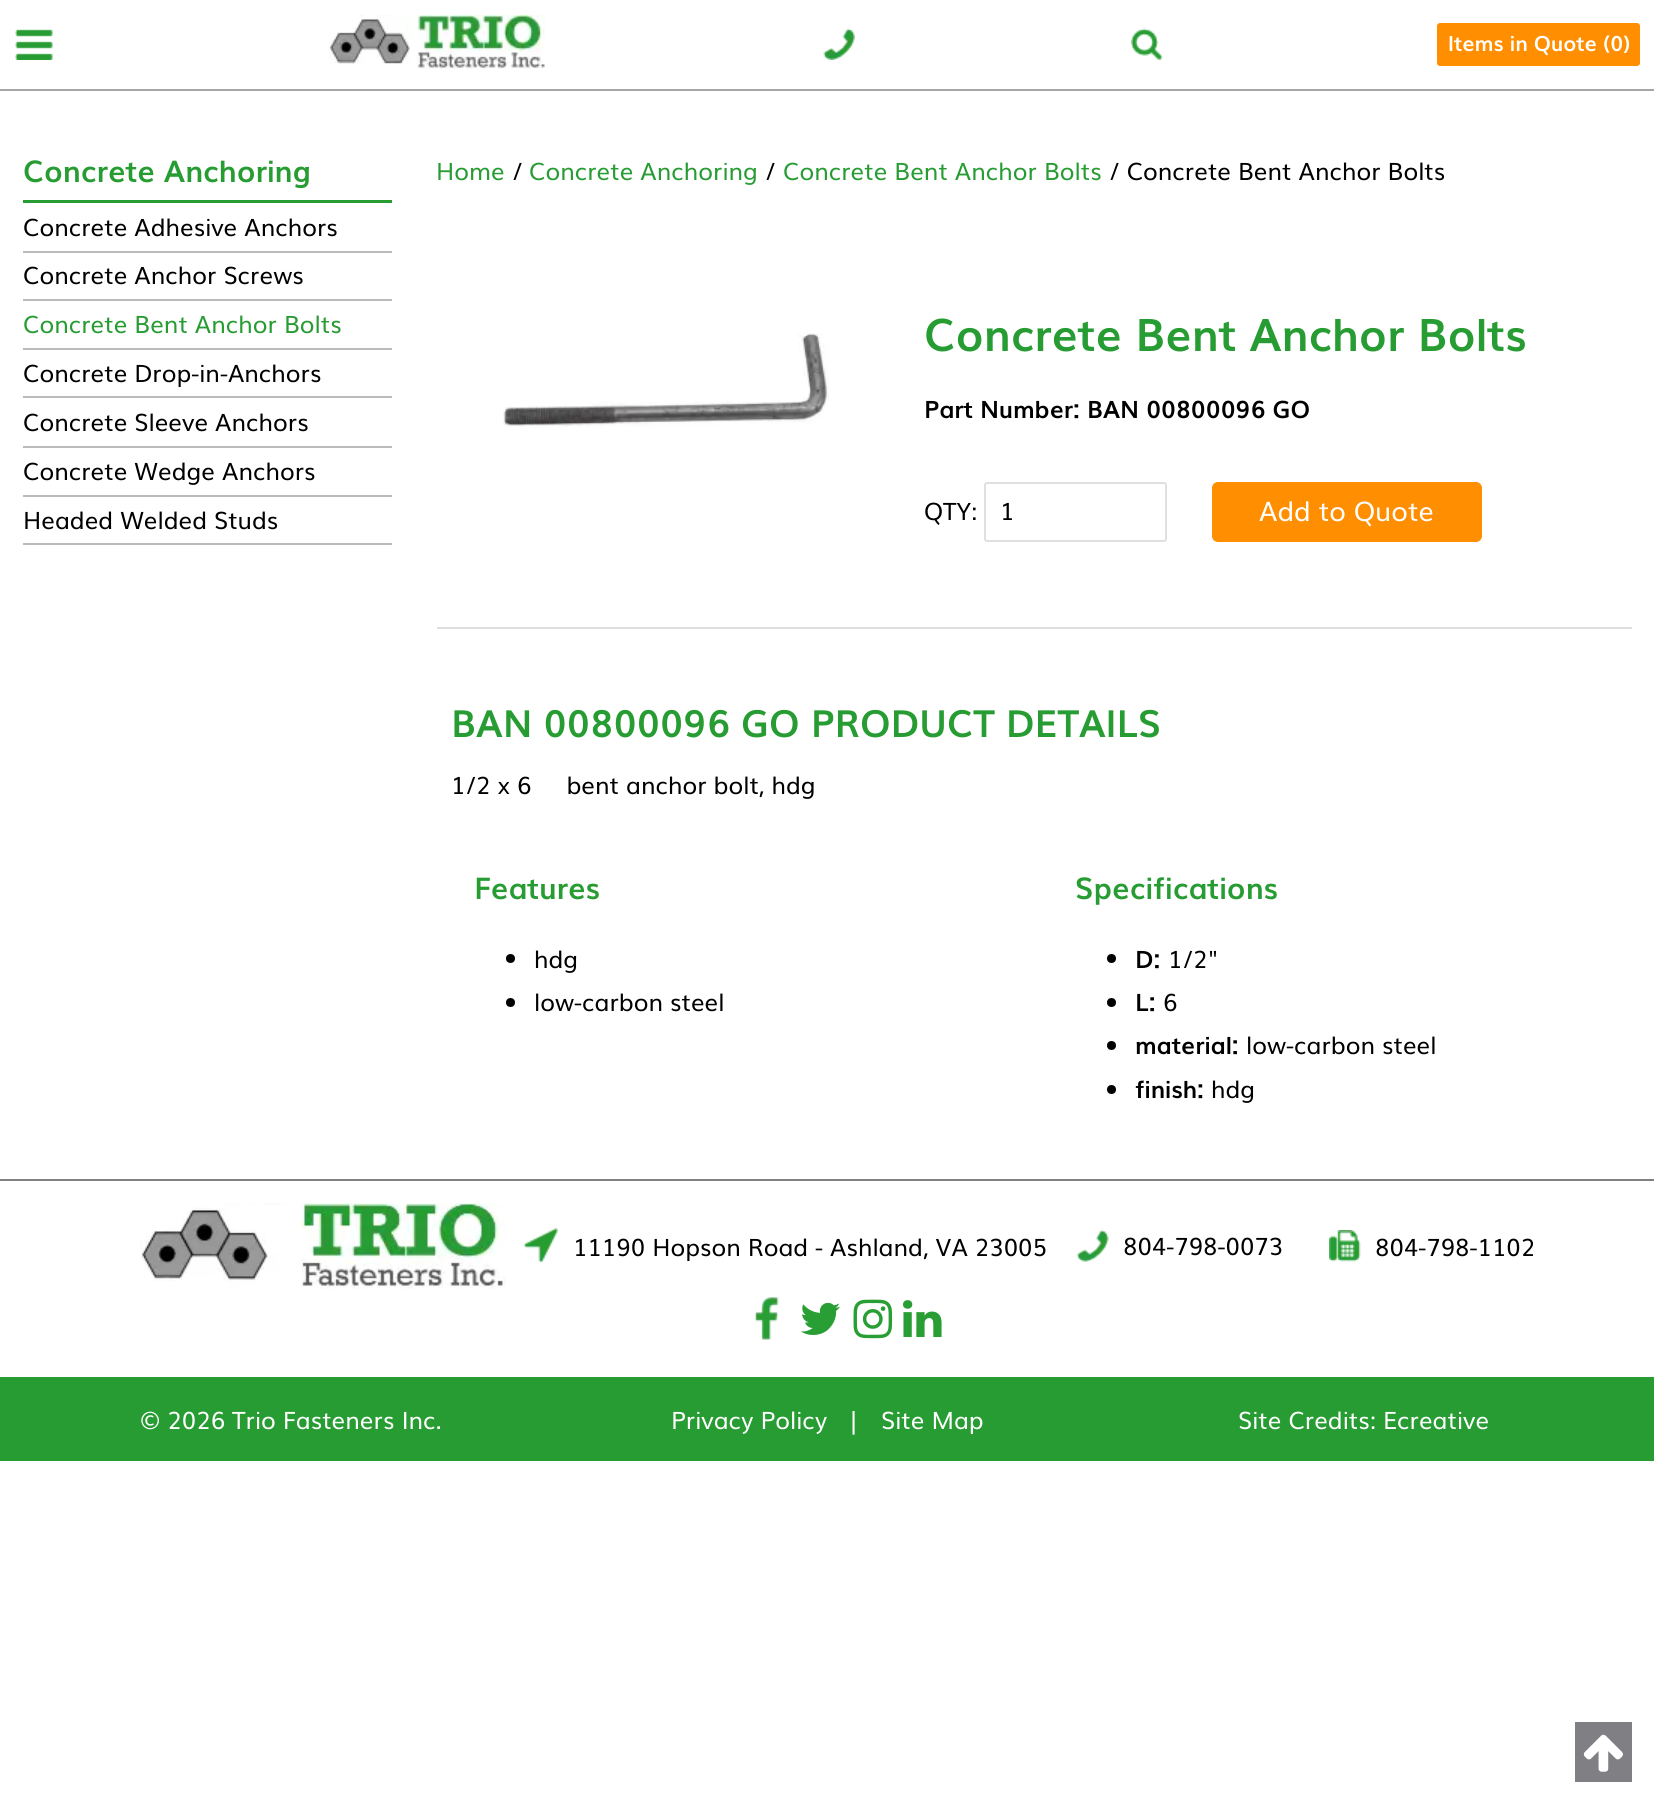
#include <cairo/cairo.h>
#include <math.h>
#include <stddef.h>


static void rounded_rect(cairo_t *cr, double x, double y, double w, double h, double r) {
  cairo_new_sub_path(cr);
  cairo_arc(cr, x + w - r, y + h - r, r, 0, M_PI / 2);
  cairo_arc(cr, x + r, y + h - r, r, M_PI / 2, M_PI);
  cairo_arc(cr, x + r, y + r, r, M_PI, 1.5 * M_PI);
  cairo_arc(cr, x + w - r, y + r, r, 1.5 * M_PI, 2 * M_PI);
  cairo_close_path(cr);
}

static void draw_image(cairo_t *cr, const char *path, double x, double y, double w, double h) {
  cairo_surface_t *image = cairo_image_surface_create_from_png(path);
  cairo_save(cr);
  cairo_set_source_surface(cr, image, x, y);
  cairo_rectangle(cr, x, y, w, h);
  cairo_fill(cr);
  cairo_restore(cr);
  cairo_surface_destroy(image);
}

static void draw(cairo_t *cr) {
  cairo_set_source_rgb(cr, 1, 1, 1);
  cairo_paint(cr);
  cairo_set_source_rgb(cr, 166 / 255.0, 166 / 255.0, 166 / 255.0);
  cairo_rectangle(cr, 0, 89, 1654, 2);
  cairo_fill(cr);
  draw_image(cr, "images/1.png", 15, 29, 38, 31);
  draw_image(cr, "images/2.png", 329, 15, 218, 54);
  draw_image(cr, "images/3.png", 823, 28, 32, 32);
  draw_image(cr, "images/4.png", 1131, 28, 32, 32);
  cairo_set_source_rgb(cr, 1, 142 / 255.0, 0);
  rounded_rect(cr, 1437, 23, 203, 43, 3);
  cairo_fill(cr);
  cairo_set_source_rgb(cr, 39 / 255.0, 156 / 255.0, 51 / 255.0);
  cairo_rectangle(cr, 23, 200, 369, 3);
  cairo_fill(cr);
  cairo_set_source_rgb(cr, 187 / 255.0, 187 / 255.0, 187 / 255.0);
  cairo_rectangle(cr, 23, 251, 369, 2);
  cairo_fill(cr);
  cairo_rectangle(cr, 23, 299, 369, 2);
  cairo_fill(cr);
  cairo_rectangle(cr, 23, 348, 369, 2);
  cairo_fill(cr);
  cairo_rectangle(cr, 23, 396, 369, 2);
  cairo_fill(cr);
  cairo_rectangle(cr, 23, 446, 369, 2);
  cairo_fill(cr);
  cairo_rectangle(cr, 23, 495, 369, 2);
  cairo_fill(cr);
  cairo_rectangle(cr, 23, 543, 369, 2);
  cairo_fill(cr);
  draw_image(cr, "images/5.png", 503, 333, 326, 94);
  rounded_rect(cr, 985, 483, 181, 58, 2);
  cairo_set_source_rgb(cr, 224 / 255.0, 224 / 255.0, 224 / 255.0);
  cairo_stroke(cr);
  cairo_set_source_rgb(cr, 1, 142 / 255.0, 0);
  rounded_rect(cr, 1212, 482, 270, 60, 6);
  cairo_fill(cr);
  cairo_set_source_rgb(cr, 224 / 255.0, 224 / 255.0, 224 / 255.0);
  cairo_rectangle(cr, 437, 627, 1195, 2);
  cairo_fill(cr);
  cairo_set_source_rgb(cr, 0, 0, 0);
  cairo_arc(cr, 510.5, 958.5, 4.5, 0, 2 * M_PI);
  cairo_fill(cr);
  cairo_arc(cr, 510.5, 1002.5, 4.5, 0, 2 * M_PI);
  cairo_fill(cr);
  cairo_arc(cr, 1111.5, 958.5, 4.5, 0, 2 * M_PI);
  cairo_fill(cr);
  cairo_arc(cr, 1111.5, 1002.5, 4.5, 0, 2 * M_PI);
  cairo_fill(cr);
  cairo_arc(cr, 1111.5, 1045.5, 4.5, 0, 2 * M_PI);
  cairo_fill(cr);
  cairo_arc(cr, 1111.5, 1089.5, 4.5, 0, 2 * M_PI);
  cairo_fill(cr);
  cairo_set_source_rgb(cr, 128 / 255.0, 128 / 255.0, 128 / 255.0);
  cairo_rectangle(cr, 0, 1179, 1654, 2);
  cairo_fill(cr);
  draw_image(cr, "images/6.png", 140, 1203, 366, 86);
  draw_image(cr, "images/7.png", 523, 1228, 35, 35);
  draw_image(cr, "images/8.png", 1077, 1230, 32, 32);
  draw_image(cr, "images/9.png", 1329, 1230, 32, 32);
  draw_image(cr, "images/10.png", 754, 1297, 25, 43);
  draw_image(cr, "images/11.png", 800, 1302, 40, 33);
  draw_image(cr, "images/12.png", 853, 1299, 40, 40);
  draw_image(cr, "images/13.png", 903, 1300, 39, 37);
  cairo_set_source_rgb(cr, 39 / 255.0, 156 / 255.0, 51 / 255.0);
  cairo_rectangle(cr, 0, 1377, 1654, 84);
  cairo_fill(cr);
  cairo_set_source_rgb(cr, 128 / 255.0, 127 / 255.0, 131 / 255.0);
  cairo_rectangle(cr, 1575, 1722, 57, 60);
  cairo_fill(cr);
  draw_image(cr, "images/14.png", 1583, 1734, 40, 38);
  cairo_select_font_face(cr, "Muli", CAIRO_FONT_SLANT_NORMAL, CAIRO_FONT_WEIGHT_BOLD);
  cairo_set_font_size(cr, 21);
  cairo_set_source_rgb(cr, 1, 1, 1);
  cairo_move_to(cr, 1448, 51);
  cairo_show_text(cr, "Items in Quote (0)");
  cairo_set_font_size(cr, 30);
  cairo_set_source_rgb(cr, 39 / 255.0, 156 / 255.0, 51 / 255.0);
  cairo_move_to(cr, 23, 182);
  cairo_show_text(cr, "Concrete Anchoring");
  cairo_select_font_face(cr, "Muli", CAIRO_FONT_SLANT_NORMAL, CAIRO_FONT_WEIGHT_NORMAL);
  cairo_set_font_size(cr, 24);
  cairo_set_source_rgb(cr, 0, 0, 0);
  cairo_move_to(cr, 23, 236);
  cairo_show_text(cr, "Concrete Adhesive Anchors");
  cairo_move_to(cr, 23, 284);
  cairo_show_text(cr, "Concrete Anchor Screws");
  cairo_set_source_rgb(cr, 39 / 255.0, 156 / 255.0, 51 / 255.0);
  cairo_move_to(cr, 23, 333);
  cairo_show_text(cr, "Concrete Bent Anchor Bolts");
  cairo_set_source_rgb(cr, 0, 0, 0);
  cairo_move_to(cr, 23, 382);
  cairo_show_text(cr, "Concrete Drop-in-Anchors");
  cairo_move_to(cr, 23, 431);
  cairo_show_text(cr, "Concrete Sleeve Anchors");
  cairo_move_to(cr, 23, 480);
  cairo_show_text(cr, "Concrete Wedge Anchors");
  cairo_move_to(cr, 23, 529);
  cairo_show_text(cr, "Headed Welded Studs");
  cairo_set_source_rgb(cr, 39 / 255.0, 156 / 255.0, 51 / 255.0);
  cairo_move_to(cr, 436, 180);
  cairo_show_text(cr, "Home");
  cairo_set_source_rgb(cr, 0, 0, 0);
  cairo_move_to(cr, 512, 180);
  cairo_show_text(cr, "/");
  cairo_set_source_rgb(cr, 39 / 255.0, 156 / 255.0, 51 / 255.0);
  cairo_move_to(cr, 529, 180);
  cairo_show_text(cr, "Concrete Anchoring");
  cairo_set_source_rgb(cr, 0, 0, 0);
  cairo_move_to(cr, 765, 180);
  cairo_show_text(cr, "/");
  cairo_set_source_rgb(cr, 39 / 255.0, 156 / 255.0, 51 / 255.0);
  cairo_move_to(cr, 783, 180);
  cairo_show_text(cr, "Concrete Bent Anchor Bolts");
  cairo_set_source_rgb(cr, 0, 0, 0);
  cairo_move_to(cr, 1109, 180);
  cairo_show_text(cr, "/ Concrete Bent Anchor Bolts");
  cairo_select_font_face(cr, "Muli", CAIRO_FONT_SLANT_NORMAL, CAIRO_FONT_WEIGHT_BOLD);
  cairo_set_font_size(cr, 45);
  cairo_set_source_rgb(cr, 39 / 255.0, 156 / 255.0, 51 / 255.0);
  cairo_move_to(cr, 924, 351);
  cairo_show_text(cr, "Concrete Bent Anchor Bolts");
  cairo_set_font_size(cr, 24);
  cairo_set_source_rgb(cr, 0, 0, 0);
  cairo_move_to(cr, 924, 418);
  cairo_show_text(cr, "Part Number: BAN 00800096 GO");
  cairo_select_font_face(cr, "Muli", CAIRO_FONT_SLANT_NORMAL, CAIRO_FONT_WEIGHT_NORMAL);
  cairo_move_to(cr, 924, 520);
  cairo_show_text(cr, "QTY:");
  cairo_move_to(cr, 1000, 520);
  cairo_show_text(cr, "1");
  cairo_set_font_size(cr, 27);
  cairo_set_source_rgb(cr, 1, 1, 1);
  cairo_move_to(cr, 1259, 521);
  cairo_show_text(cr, "Add to Quote");
  cairo_select_font_face(cr, "Muli", CAIRO_FONT_SLANT_NORMAL, CAIRO_FONT_WEIGHT_BOLD);
  cairo_set_font_size(cr, 37.5);
  cairo_set_source_rgb(cr, 39 / 255.0, 156 / 255.0, 51 / 255.0);
  cairo_move_to(cr, 451, 737);
  cairo_show_text(cr, "BAN 00800096 GO PRODUCT DETAILS");
  cairo_select_font_face(cr, "Muli", CAIRO_FONT_SLANT_NORMAL, CAIRO_FONT_WEIGHT_NORMAL);
  cairo_set_font_size(cr, 24);
  cairo_set_source_rgb(cr, 0, 0, 0);
  cairo_move_to(cr, 451, 794);
  cairo_show_text(cr, "1/2 x 6     bent anchor bolt, hdg");
  cairo_select_font_face(cr, "Muli", CAIRO_FONT_SLANT_NORMAL, CAIRO_FONT_WEIGHT_BOLD);
  cairo_set_font_size(cr, 30);
  cairo_set_source_rgb(cr, 39 / 255.0, 156 / 255.0, 51 / 255.0);
  cairo_move_to(cr, 474, 899);
  cairo_show_text(cr, "Features");
  cairo_select_font_face(cr, "Muli", CAIRO_FONT_SLANT_NORMAL, CAIRO_FONT_WEIGHT_NORMAL);
  cairo_set_font_size(cr, 24);
  cairo_set_source_rgb(cr, 0, 0, 0);
  cairo_move_to(cr, 534, 968);
  cairo_show_text(cr, "hdg");
  cairo_move_to(cr, 534, 1011);
  cairo_show_text(cr, "low-carbon steel");
  cairo_select_font_face(cr, "Muli", CAIRO_FONT_SLANT_NORMAL, CAIRO_FONT_WEIGHT_BOLD);
  cairo_set_font_size(cr, 30);
  cairo_set_source_rgb(cr, 39 / 255.0, 156 / 255.0, 51 / 255.0);
  cairo_move_to(cr, 1075, 899);
  cairo_show_text(cr, "Specifications");
  cairo_set_font_size(cr, 24);
  cairo_set_source_rgb(cr, 0, 0, 0);
  cairo_move_to(cr, 1135, 968);
  cairo_show_text(cr, "D:");
  cairo_select_font_face(cr, "Muli", CAIRO_FONT_SLANT_NORMAL, CAIRO_FONT_WEIGHT_NORMAL);
  cairo_move_to(cr, 1168, 968);
  cairo_show_text(cr, "1/2\"");
  cairo_select_font_face(cr, "Muli", CAIRO_FONT_SLANT_NORMAL, CAIRO_FONT_WEIGHT_BOLD);
  cairo_move_to(cr, 1135, 1011);
  cairo_show_text(cr, "L:");
  cairo_select_font_face(cr, "Muli", CAIRO_FONT_SLANT_NORMAL, CAIRO_FONT_WEIGHT_NORMAL);
  cairo_move_to(cr, 1163, 1011);
  cairo_show_text(cr, "6");
  cairo_select_font_face(cr, "Muli", CAIRO_FONT_SLANT_NORMAL, CAIRO_FONT_WEIGHT_BOLD);
  cairo_move_to(cr, 1135, 1054);
  cairo_show_text(cr, "material:");
  cairo_select_font_face(cr, "Muli", CAIRO_FONT_SLANT_NORMAL, CAIRO_FONT_WEIGHT_NORMAL);
  cairo_move_to(cr, 1246, 1054);
  cairo_show_text(cr, "low-carbon steel");
  cairo_select_font_face(cr, "Muli", CAIRO_FONT_SLANT_NORMAL, CAIRO_FONT_WEIGHT_BOLD);
  cairo_move_to(cr, 1135, 1098);
  cairo_show_text(cr, "finish:");
  cairo_select_font_face(cr, "Muli", CAIRO_FONT_SLANT_NORMAL, CAIRO_FONT_WEIGHT_NORMAL);
  cairo_move_to(cr, 1211, 1098);
  cairo_show_text(cr, "hdg");
  cairo_move_to(cr, 573, 1256);
  cairo_show_text(cr, "11190 Hopson Road - Ashland, VA 23005");
  cairo_move_to(cr, 1123, 1255);
  cairo_show_text(cr, "804-798-0073");
  cairo_move_to(cr, 1375, 1256);
  cairo_show_text(cr, "804-798-1102");
  cairo_set_source_rgb(cr, 1, 1, 1);
  cairo_move_to(cr, 140, 1429);
  cairo_show_text(cr, "© 2026 Trio Fasteners Inc.");
  cairo_move_to(cr, 671, 1429);
  cairo_show_text(cr, "Privacy Policy");
  cairo_move_to(cr, 848, 1429);
  cairo_show_text(cr, "|");
  cairo_move_to(cr, 881, 1429);
  cairo_show_text(cr, "Site Map");
  cairo_move_to(cr, 1238, 1429);
  cairo_show_text(cr, "Site Credits: Ecreative");
}

int main(void) {
  cairo_surface_t *surface = cairo_image_surface_create(CAIRO_FORMAT_RGB24, 1654, 1812);
  cairo_t *cr = cairo_create(surface);
  cairo_font_options_t *options = cairo_font_options_create();
  cairo_font_options_set_hint_metrics(options, CAIRO_HINT_METRICS_OFF);
  cairo_font_options_set_hint_style(options, CAIRO_HINT_STYLE_NONE);
  cairo_set_font_options(cr, options);
  cairo_set_miter_limit(cr, 4);
  draw(cr);
  cairo_surface_write_to_png(surface, "out.png");
  cairo_font_options_destroy(options);
  cairo_destroy(cr);
  cairo_surface_destroy(surface);
  return 0;
}
